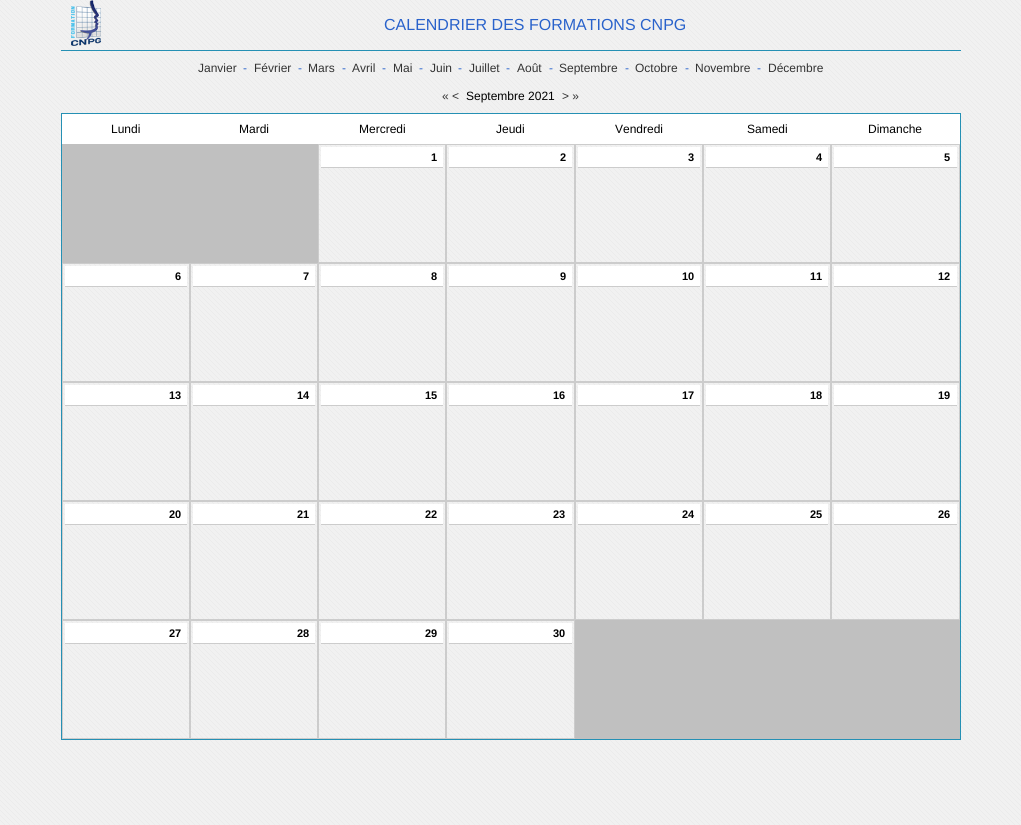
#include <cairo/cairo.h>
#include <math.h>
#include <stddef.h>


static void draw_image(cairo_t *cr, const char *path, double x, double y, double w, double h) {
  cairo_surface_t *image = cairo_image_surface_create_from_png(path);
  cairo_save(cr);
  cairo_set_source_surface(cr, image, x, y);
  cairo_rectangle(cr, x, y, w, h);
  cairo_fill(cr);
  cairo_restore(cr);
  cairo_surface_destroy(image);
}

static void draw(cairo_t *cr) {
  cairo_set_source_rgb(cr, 1, 1, 1);
  cairo_paint(cr);
  draw_image(cr, "images/1.png", 0, 0, 1021, 825);
  cairo_set_source_rgb(cr, 37 / 255.0, 144 / 255.0, 180 / 255.0);
  cairo_rectangle(cr, 61, 50, 900, 1);
  cairo_fill(cr);
  draw_image(cr, "images/2.png", 71, 0, 30, 46);
  cairo_rectangle(cr, 61.5, 113.5, 899, 626);
  cairo_set_line_width(cr, 1);
  cairo_stroke(cr);
  cairo_set_source_rgb(cr, 1, 1, 1);
  cairo_rectangle(cr, 62, 114, 898, 30);
  cairo_fill(cr);
  cairo_set_source_rgb(cr, 192 / 255.0, 192 / 255.0, 192 / 255.0);
  cairo_rectangle(cr, 62, 144, 256, 119);
  cairo_fill(cr);
  cairo_rectangle(cr, 318.5, 144.5, 127, 118);
  cairo_set_source_rgb(cr, 204 / 255.0, 204 / 255.0, 204 / 255.0);
  cairo_stroke(cr);
  cairo_set_source_rgb(cr, 1, 1, 1);
  cairo_rectangle(cr, 321, 147, 122, 20);
  cairo_fill(cr);
  cairo_set_source_rgb(cr, 204 / 255.0, 204 / 255.0, 204 / 255.0);
  cairo_rectangle(cr, 321, 167, 122, 1);
  cairo_fill(cr);
  cairo_rectangle(cr, 446.5, 144.5, 128, 118);
  cairo_stroke(cr);
  cairo_set_source_rgb(cr, 1, 1, 1);
  cairo_rectangle(cr, 449, 147, 123, 20);
  cairo_fill(cr);
  cairo_set_source_rgb(cr, 204 / 255.0, 204 / 255.0, 204 / 255.0);
  cairo_rectangle(cr, 449, 167, 123, 1);
  cairo_fill(cr);
  cairo_rectangle(cr, 575.5, 144.5, 127, 118);
  cairo_stroke(cr);
  cairo_set_source_rgb(cr, 1, 1, 1);
  cairo_rectangle(cr, 578, 147, 122, 20);
  cairo_fill(cr);
  cairo_set_source_rgb(cr, 204 / 255.0, 204 / 255.0, 204 / 255.0);
  cairo_rectangle(cr, 578, 167, 122, 1);
  cairo_fill(cr);
  cairo_rectangle(cr, 703.5, 144.5, 127, 118);
  cairo_stroke(cr);
  cairo_set_source_rgb(cr, 1, 1, 1);
  cairo_rectangle(cr, 706, 147, 122, 20);
  cairo_fill(cr);
  cairo_set_source_rgb(cr, 204 / 255.0, 204 / 255.0, 204 / 255.0);
  cairo_rectangle(cr, 706, 167, 122, 1);
  cairo_fill(cr);
  cairo_rectangle(cr, 831.5, 144.5, 128, 118);
  cairo_stroke(cr);
  cairo_set_source_rgb(cr, 1, 1, 1);
  cairo_rectangle(cr, 834, 147, 123, 20);
  cairo_fill(cr);
  cairo_set_source_rgb(cr, 204 / 255.0, 204 / 255.0, 204 / 255.0);
  cairo_rectangle(cr, 834, 167, 123, 1);
  cairo_fill(cr);
  cairo_rectangle(cr, 62.5, 263.5, 127, 118);
  cairo_stroke(cr);
  cairo_set_source_rgb(cr, 1, 1, 1);
  cairo_rectangle(cr, 65, 266, 122, 20);
  cairo_fill(cr);
  cairo_set_source_rgb(cr, 204 / 255.0, 204 / 255.0, 204 / 255.0);
  cairo_rectangle(cr, 65, 286, 122, 1);
  cairo_fill(cr);
  cairo_rectangle(cr, 190.5, 263.5, 127, 118);
  cairo_stroke(cr);
  cairo_set_source_rgb(cr, 1, 1, 1);
  cairo_rectangle(cr, 193, 266, 122, 20);
  cairo_fill(cr);
  cairo_set_source_rgb(cr, 204 / 255.0, 204 / 255.0, 204 / 255.0);
  cairo_rectangle(cr, 193, 286, 122, 1);
  cairo_fill(cr);
  cairo_rectangle(cr, 318.5, 263.5, 127, 118);
  cairo_stroke(cr);
  cairo_set_source_rgb(cr, 1, 1, 1);
  cairo_rectangle(cr, 321, 266, 122, 20);
  cairo_fill(cr);
  cairo_set_source_rgb(cr, 204 / 255.0, 204 / 255.0, 204 / 255.0);
  cairo_rectangle(cr, 321, 286, 122, 1);
  cairo_fill(cr);
  cairo_rectangle(cr, 446.5, 263.5, 128, 118);
  cairo_stroke(cr);
  cairo_set_source_rgb(cr, 1, 1, 1);
  cairo_rectangle(cr, 449, 266, 123, 20);
  cairo_fill(cr);
  cairo_set_source_rgb(cr, 204 / 255.0, 204 / 255.0, 204 / 255.0);
  cairo_rectangle(cr, 449, 286, 123, 1);
  cairo_fill(cr);
  cairo_rectangle(cr, 575.5, 263.5, 127, 118);
  cairo_stroke(cr);
  cairo_set_source_rgb(cr, 1, 1, 1);
  cairo_rectangle(cr, 578, 266, 122, 20);
  cairo_fill(cr);
  cairo_set_source_rgb(cr, 204 / 255.0, 204 / 255.0, 204 / 255.0);
  cairo_rectangle(cr, 578, 286, 122, 1);
  cairo_fill(cr);
  cairo_rectangle(cr, 703.5, 263.5, 127, 118);
  cairo_stroke(cr);
  cairo_set_source_rgb(cr, 1, 1, 1);
  cairo_rectangle(cr, 706, 266, 122, 20);
  cairo_fill(cr);
  cairo_set_source_rgb(cr, 204 / 255.0, 204 / 255.0, 204 / 255.0);
  cairo_rectangle(cr, 706, 286, 122, 1);
  cairo_fill(cr);
  cairo_rectangle(cr, 831.5, 263.5, 128, 118);
  cairo_stroke(cr);
  cairo_set_source_rgb(cr, 1, 1, 1);
  cairo_rectangle(cr, 834, 266, 123, 20);
  cairo_fill(cr);
  cairo_set_source_rgb(cr, 204 / 255.0, 204 / 255.0, 204 / 255.0);
  cairo_rectangle(cr, 834, 286, 123, 1);
  cairo_fill(cr);
  cairo_rectangle(cr, 62.5, 382.5, 127, 118);
  cairo_stroke(cr);
  cairo_set_source_rgb(cr, 1, 1, 1);
  cairo_rectangle(cr, 65, 385, 122, 20);
  cairo_fill(cr);
  cairo_set_source_rgb(cr, 204 / 255.0, 204 / 255.0, 204 / 255.0);
  cairo_rectangle(cr, 65, 405, 122, 1);
  cairo_fill(cr);
  cairo_rectangle(cr, 190.5, 382.5, 127, 118);
  cairo_stroke(cr);
  cairo_set_source_rgb(cr, 1, 1, 1);
  cairo_rectangle(cr, 193, 385, 122, 20);
  cairo_fill(cr);
  cairo_set_source_rgb(cr, 204 / 255.0, 204 / 255.0, 204 / 255.0);
  cairo_rectangle(cr, 193, 405, 122, 1);
  cairo_fill(cr);
  cairo_rectangle(cr, 318.5, 382.5, 127, 118);
  cairo_stroke(cr);
  cairo_set_source_rgb(cr, 1, 1, 1);
  cairo_rectangle(cr, 321, 385, 122, 20);
  cairo_fill(cr);
  cairo_set_source_rgb(cr, 204 / 255.0, 204 / 255.0, 204 / 255.0);
  cairo_rectangle(cr, 321, 405, 122, 1);
  cairo_fill(cr);
  cairo_rectangle(cr, 446.5, 382.5, 128, 118);
  cairo_stroke(cr);
  cairo_set_source_rgb(cr, 1, 1, 1);
  cairo_rectangle(cr, 449, 385, 123, 20);
  cairo_fill(cr);
  cairo_set_source_rgb(cr, 204 / 255.0, 204 / 255.0, 204 / 255.0);
  cairo_rectangle(cr, 449, 405, 123, 1);
  cairo_fill(cr);
  cairo_rectangle(cr, 575.5, 382.5, 127, 118);
  cairo_stroke(cr);
  cairo_set_source_rgb(cr, 1, 1, 1);
  cairo_rectangle(cr, 578, 385, 122, 20);
  cairo_fill(cr);
  cairo_set_source_rgb(cr, 204 / 255.0, 204 / 255.0, 204 / 255.0);
  cairo_rectangle(cr, 578, 405, 122, 1);
  cairo_fill(cr);
  cairo_rectangle(cr, 703.5, 382.5, 127, 118);
  cairo_stroke(cr);
  cairo_set_source_rgb(cr, 1, 1, 1);
  cairo_rectangle(cr, 706, 385, 122, 20);
  cairo_fill(cr);
  cairo_set_source_rgb(cr, 204 / 255.0, 204 / 255.0, 204 / 255.0);
  cairo_rectangle(cr, 706, 405, 122, 1);
  cairo_fill(cr);
  cairo_rectangle(cr, 831.5, 382.5, 128, 118);
  cairo_stroke(cr);
  cairo_set_source_rgb(cr, 1, 1, 1);
  cairo_rectangle(cr, 834, 385, 123, 20);
  cairo_fill(cr);
  cairo_set_source_rgb(cr, 204 / 255.0, 204 / 255.0, 204 / 255.0);
  cairo_rectangle(cr, 834, 405, 123, 1);
  cairo_fill(cr);
  cairo_rectangle(cr, 62.5, 501.5, 127, 118);
  cairo_stroke(cr);
  cairo_set_source_rgb(cr, 1, 1, 1);
  cairo_rectangle(cr, 65, 504, 122, 20);
  cairo_fill(cr);
  cairo_set_source_rgb(cr, 204 / 255.0, 204 / 255.0, 204 / 255.0);
  cairo_rectangle(cr, 65, 524, 122, 1);
  cairo_fill(cr);
  cairo_rectangle(cr, 190.5, 501.5, 127, 118);
  cairo_stroke(cr);
  cairo_set_source_rgb(cr, 1, 1, 1);
  cairo_rectangle(cr, 193, 504, 122, 20);
  cairo_fill(cr);
  cairo_set_source_rgb(cr, 204 / 255.0, 204 / 255.0, 204 / 255.0);
  cairo_rectangle(cr, 193, 524, 122, 1);
  cairo_fill(cr);
  cairo_rectangle(cr, 318.5, 501.5, 127, 118);
  cairo_stroke(cr);
  cairo_set_source_rgb(cr, 1, 1, 1);
  cairo_rectangle(cr, 321, 504, 122, 20);
  cairo_fill(cr);
  cairo_set_source_rgb(cr, 204 / 255.0, 204 / 255.0, 204 / 255.0);
  cairo_rectangle(cr, 321, 524, 122, 1);
  cairo_fill(cr);
  cairo_rectangle(cr, 446.5, 501.5, 128, 118);
  cairo_stroke(cr);
  cairo_set_source_rgb(cr, 1, 1, 1);
  cairo_rectangle(cr, 449, 504, 123, 20);
  cairo_fill(cr);
  cairo_set_source_rgb(cr, 204 / 255.0, 204 / 255.0, 204 / 255.0);
  cairo_rectangle(cr, 449, 524, 123, 1);
  cairo_fill(cr);
  cairo_rectangle(cr, 575.5, 501.5, 127, 118);
  cairo_stroke(cr);
  cairo_set_source_rgb(cr, 1, 1, 1);
  cairo_rectangle(cr, 578, 504, 122, 20);
  cairo_fill(cr);
  cairo_set_source_rgb(cr, 204 / 255.0, 204 / 255.0, 204 / 255.0);
  cairo_rectangle(cr, 578, 524, 122, 1);
  cairo_fill(cr);
  cairo_rectangle(cr, 703.5, 501.5, 127, 118);
  cairo_stroke(cr);
  cairo_set_source_rgb(cr, 1, 1, 1);
  cairo_rectangle(cr, 706, 504, 122, 20);
  cairo_fill(cr);
  cairo_set_source_rgb(cr, 204 / 255.0, 204 / 255.0, 204 / 255.0);
  cairo_rectangle(cr, 706, 524, 122, 1);
  cairo_fill(cr);
  cairo_rectangle(cr, 831.5, 501.5, 128, 118);
  cairo_stroke(cr);
  cairo_set_source_rgb(cr, 1, 1, 1);
  cairo_rectangle(cr, 834, 504, 123, 20);
  cairo_fill(cr);
  cairo_set_source_rgb(cr, 204 / 255.0, 204 / 255.0, 204 / 255.0);
  cairo_rectangle(cr, 834, 524, 123, 1);
  cairo_fill(cr);
  cairo_rectangle(cr, 62.5, 620.5, 127, 118);
  cairo_stroke(cr);
  cairo_set_source_rgb(cr, 1, 1, 1);
  cairo_rectangle(cr, 65, 623, 122, 20);
  cairo_fill(cr);
  cairo_set_source_rgb(cr, 204 / 255.0, 204 / 255.0, 204 / 255.0);
  cairo_rectangle(cr, 65, 643, 122, 1);
  cairo_fill(cr);
  cairo_rectangle(cr, 190.5, 620.5, 127, 118);
  cairo_stroke(cr);
  cairo_set_source_rgb(cr, 1, 1, 1);
  cairo_rectangle(cr, 193, 623, 122, 20);
  cairo_fill(cr);
  cairo_set_source_rgb(cr, 204 / 255.0, 204 / 255.0, 204 / 255.0);
  cairo_rectangle(cr, 193, 643, 122, 1);
  cairo_fill(cr);
  cairo_rectangle(cr, 318.5, 620.5, 127, 118);
  cairo_stroke(cr);
  cairo_set_source_rgb(cr, 1, 1, 1);
  cairo_rectangle(cr, 321, 623, 122, 20);
  cairo_fill(cr);
  cairo_set_source_rgb(cr, 204 / 255.0, 204 / 255.0, 204 / 255.0);
  cairo_rectangle(cr, 321, 643, 122, 1);
  cairo_fill(cr);
  cairo_rectangle(cr, 446.5, 620.5, 128, 118);
  cairo_stroke(cr);
  cairo_set_source_rgb(cr, 1, 1, 1);
  cairo_rectangle(cr, 449, 623, 123, 20);
  cairo_fill(cr);
  cairo_set_source_rgb(cr, 204 / 255.0, 204 / 255.0, 204 / 255.0);
  cairo_rectangle(cr, 449, 643, 123, 1);
  cairo_fill(cr);
  cairo_set_source_rgb(cr, 192 / 255.0, 192 / 255.0, 192 / 255.0);
  cairo_rectangle(cr, 575, 620, 385, 119);
  cairo_fill(cr);
  cairo_select_font_face(cr, "Liberation Sans", CAIRO_FONT_SLANT_NORMAL, CAIRO_FONT_WEIGHT_NORMAL);
  cairo_set_font_size(cr, 16);
  cairo_set_source_rgb(cr, 41 / 255.0, 98 / 255.0, 203 / 255.0);
  cairo_move_to(cr, 384, 30);
  cairo_show_text(cr, "CALENDRIER DES FORMATIONS CNPG");
  cairo_set_font_size(cr, 12);
  cairo_set_source_rgb(cr, 51 / 255.0, 51 / 255.0, 51 / 255.0);
  cairo_move_to(cr, 198, 72);
  cairo_show_text(cr, "Janvier");
  cairo_set_source_rgb(cr, 41 / 255.0, 98 / 255.0, 203 / 255.0);
  cairo_move_to(cr, 243, 72);
  cairo_show_text(cr, "-");
  cairo_set_source_rgb(cr, 51 / 255.0, 51 / 255.0, 51 / 255.0);
  cairo_move_to(cr, 254, 72);
  cairo_show_text(cr, "Février");
  cairo_set_source_rgb(cr, 41 / 255.0, 98 / 255.0, 203 / 255.0);
  cairo_move_to(cr, 298, 72);
  cairo_show_text(cr, "-");
  cairo_set_source_rgb(cr, 51 / 255.0, 51 / 255.0, 51 / 255.0);
  cairo_move_to(cr, 308, 72);
  cairo_show_text(cr, "Mars");
  cairo_set_source_rgb(cr, 41 / 255.0, 98 / 255.0, 203 / 255.0);
  cairo_move_to(cr, 342, 72);
  cairo_show_text(cr, "-");
  cairo_set_source_rgb(cr, 51 / 255.0, 51 / 255.0, 51 / 255.0);
  cairo_move_to(cr, 352, 72);
  cairo_show_text(cr, "Avril");
  cairo_set_source_rgb(cr, 41 / 255.0, 98 / 255.0, 203 / 255.0);
  cairo_move_to(cr, 382, 72);
  cairo_show_text(cr, "-");
  cairo_set_source_rgb(cr, 51 / 255.0, 51 / 255.0, 51 / 255.0);
  cairo_move_to(cr, 393, 72);
  cairo_show_text(cr, "Mai");
  cairo_set_source_rgb(cr, 41 / 255.0, 98 / 255.0, 203 / 255.0);
  cairo_move_to(cr, 419, 72);
  cairo_show_text(cr, "-");
  cairo_set_source_rgb(cr, 51 / 255.0, 51 / 255.0, 51 / 255.0);
  cairo_move_to(cr, 430, 72);
  cairo_show_text(cr, "Juin");
  cairo_set_source_rgb(cr, 41 / 255.0, 98 / 255.0, 203 / 255.0);
  cairo_move_to(cr, 458, 72);
  cairo_show_text(cr, "-");
  cairo_set_source_rgb(cr, 51 / 255.0, 51 / 255.0, 51 / 255.0);
  cairo_move_to(cr, 469, 72);
  cairo_show_text(cr, "Juillet");
  cairo_set_source_rgb(cr, 41 / 255.0, 98 / 255.0, 203 / 255.0);
  cairo_move_to(cr, 506, 72);
  cairo_show_text(cr, "-");
  cairo_set_source_rgb(cr, 51 / 255.0, 51 / 255.0, 51 / 255.0);
  cairo_move_to(cr, 517, 72);
  cairo_show_text(cr, "Août");
  cairo_set_source_rgb(cr, 41 / 255.0, 98 / 255.0, 203 / 255.0);
  cairo_move_to(cr, 549, 72);
  cairo_show_text(cr, "-");
  cairo_set_source_rgb(cr, 51 / 255.0, 51 / 255.0, 51 / 255.0);
  cairo_move_to(cr, 559, 72);
  cairo_show_text(cr, "Septembre");
  cairo_set_source_rgb(cr, 41 / 255.0, 98 / 255.0, 203 / 255.0);
  cairo_move_to(cr, 625, 72);
  cairo_show_text(cr, "-");
  cairo_set_source_rgb(cr, 51 / 255.0, 51 / 255.0, 51 / 255.0);
  cairo_move_to(cr, 635, 72);
  cairo_show_text(cr, "Octobre");
  cairo_set_source_rgb(cr, 41 / 255.0, 98 / 255.0, 203 / 255.0);
  cairo_move_to(cr, 685, 72);
  cairo_show_text(cr, "-");
  cairo_set_source_rgb(cr, 51 / 255.0, 51 / 255.0, 51 / 255.0);
  cairo_move_to(cr, 695, 72);
  cairo_show_text(cr, "Novembre");
  cairo_set_source_rgb(cr, 41 / 255.0, 98 / 255.0, 203 / 255.0);
  cairo_move_to(cr, 757, 72);
  cairo_show_text(cr, "-");
  cairo_set_source_rgb(cr, 51 / 255.0, 51 / 255.0, 51 / 255.0);
  cairo_move_to(cr, 768, 72);
  cairo_show_text(cr, "Décembre");
  cairo_move_to(cr, 442, 100);
  cairo_show_text(cr, "« <");
  cairo_set_source_rgb(cr, 0, 0, 0);
  cairo_move_to(cr, 466, 100);
  cairo_show_text(cr, "Septembre 2021");
  cairo_set_source_rgb(cr, 51 / 255.0, 51 / 255.0, 51 / 255.0);
  cairo_move_to(cr, 562, 100);
  cairo_show_text(cr, "> »");
  cairo_set_source_rgb(cr, 0, 0, 0);
  cairo_move_to(cr, 111, 133);
  cairo_show_text(cr, "Lundi");
  cairo_move_to(cr, 239, 133);
  cairo_show_text(cr, "Mardi");
  cairo_move_to(cr, 359, 133);
  cairo_show_text(cr, "Mercredi");
  cairo_move_to(cr, 496, 133);
  cairo_show_text(cr, "Jeudi");
  cairo_move_to(cr, 615, 133);
  cairo_show_text(cr, "Vendredi");
  cairo_move_to(cr, 747, 133);
  cairo_show_text(cr, "Samedi");
  cairo_move_to(cr, 868, 133);
  cairo_show_text(cr, "Dimanche");
  cairo_select_font_face(cr, "Liberation Sans", CAIRO_FONT_SLANT_NORMAL, CAIRO_FONT_WEIGHT_BOLD);
  cairo_set_font_size(cr, 11);
  cairo_move_to(cr, 431, 161);
  cairo_show_text(cr, "1");
  cairo_move_to(cr, 560, 161);
  cairo_show_text(cr, "2");
  cairo_move_to(cr, 688, 161);
  cairo_show_text(cr, "3");
  cairo_move_to(cr, 816, 161);
  cairo_show_text(cr, "4");
  cairo_move_to(cr, 944, 161);
  cairo_show_text(cr, "5");
  cairo_move_to(cr, 175, 280);
  cairo_show_text(cr, "6");
  cairo_move_to(cr, 303, 280);
  cairo_show_text(cr, "7");
  cairo_move_to(cr, 431, 280);
  cairo_show_text(cr, "8");
  cairo_move_to(cr, 560, 280);
  cairo_show_text(cr, "9");
  cairo_move_to(cr, 682, 280);
  cairo_show_text(cr, "10");
  cairo_move_to(cr, 810, 280);
  cairo_show_text(cr, "11");
  cairo_move_to(cr, 938, 280);
  cairo_show_text(cr, "12");
  cairo_move_to(cr, 169, 399);
  cairo_show_text(cr, "13");
  cairo_move_to(cr, 297, 399);
  cairo_show_text(cr, "14");
  cairo_move_to(cr, 425, 399);
  cairo_show_text(cr, "15");
  cairo_move_to(cr, 553, 399);
  cairo_show_text(cr, "16");
  cairo_move_to(cr, 682, 399);
  cairo_show_text(cr, "17");
  cairo_move_to(cr, 810, 399);
  cairo_show_text(cr, "18");
  cairo_move_to(cr, 938, 399);
  cairo_show_text(cr, "19");
  cairo_move_to(cr, 169, 518);
  cairo_show_text(cr, "20");
  cairo_move_to(cr, 297, 518);
  cairo_show_text(cr, "21");
  cairo_move_to(cr, 425, 518);
  cairo_show_text(cr, "22");
  cairo_move_to(cr, 553, 518);
  cairo_show_text(cr, "23");
  cairo_move_to(cr, 682, 518);
  cairo_show_text(cr, "24");
  cairo_move_to(cr, 810, 518);
  cairo_show_text(cr, "25");
  cairo_move_to(cr, 938, 518);
  cairo_show_text(cr, "26");
  cairo_move_to(cr, 169, 637);
  cairo_show_text(cr, "27");
  cairo_move_to(cr, 297, 637);
  cairo_show_text(cr, "28");
  cairo_move_to(cr, 425, 637);
  cairo_show_text(cr, "29");
  cairo_move_to(cr, 553, 637);
  cairo_show_text(cr, "30");
}

int main(void) {
  cairo_surface_t *surface = cairo_image_surface_create(CAIRO_FORMAT_RGB24, 1021, 825);
  cairo_t *cr = cairo_create(surface);
  cairo_font_options_t *options = cairo_font_options_create();
  cairo_font_options_set_hint_metrics(options, CAIRO_HINT_METRICS_OFF);
  cairo_font_options_set_hint_style(options, CAIRO_HINT_STYLE_NONE);
  cairo_set_font_options(cr, options);
  cairo_set_miter_limit(cr, 4);
  draw(cr);
  cairo_surface_write_to_png(surface, "out.png");
  cairo_font_options_destroy(options);
  cairo_destroy(cr);
  cairo_surface_destroy(surface);
  return 0;
}
